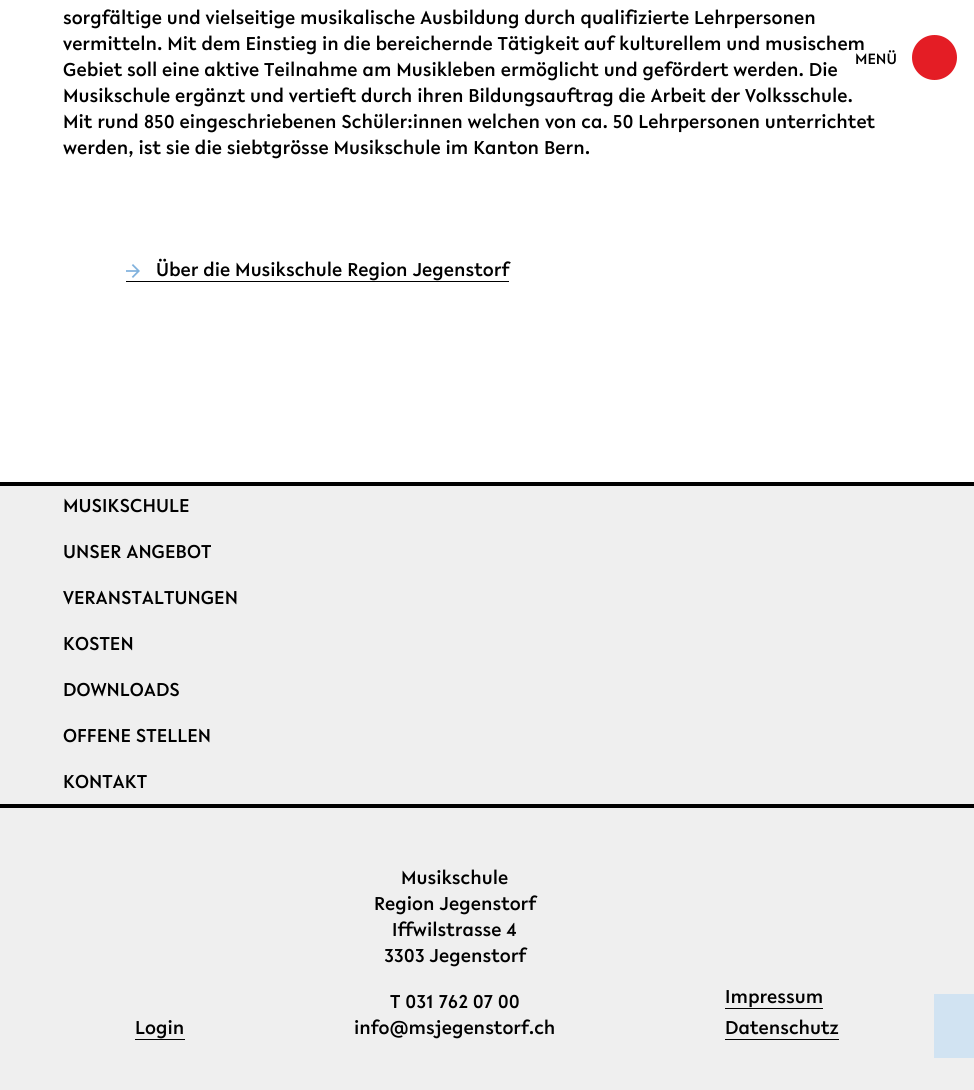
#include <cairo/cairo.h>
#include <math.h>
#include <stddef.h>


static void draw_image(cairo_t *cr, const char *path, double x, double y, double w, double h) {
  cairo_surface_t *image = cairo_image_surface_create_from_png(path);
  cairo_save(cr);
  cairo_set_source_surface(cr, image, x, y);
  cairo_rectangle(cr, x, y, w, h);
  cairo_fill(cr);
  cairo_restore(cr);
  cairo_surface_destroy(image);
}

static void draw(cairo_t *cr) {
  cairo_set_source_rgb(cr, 1, 1, 1);
  cairo_paint(cr);
  draw_image(cr, "images/1.png", 126, 264, 14, 14);
  cairo_set_source_rgb(cr, 0, 0, 0);
  cairo_rectangle(cr, 126, 281, 383, 1);
  cairo_fill(cr);
  cairo_set_source_rgb(cr, 228 / 255.0, 29 / 255.0, 37 / 255.0);
  cairo_arc(cr, 934.5, 57.5, 22.5, 0, 2 * M_PI);
  cairo_fill(cr);
  cairo_set_source_rgb(cr, 239 / 255.0, 239 / 255.0, 239 / 255.0);
  cairo_rectangle(cr, 0, 486, 974, 604);
  cairo_fill(cr);
  cairo_set_source_rgb(cr, 0, 0, 0);
  cairo_rectangle(cr, 0, 482, 974, 4);
  cairo_fill(cr);
  cairo_rectangle(cr, 0, 804, 974, 4);
  cairo_fill(cr);
  cairo_rectangle(cr, 135, 1039, 50, 1);
  cairo_fill(cr);
  cairo_rectangle(cr, 725, 1008, 98, 1);
  cairo_fill(cr);
  cairo_rectangle(cr, 725, 1039, 114, 1);
  cairo_fill(cr);
  cairo_set_source_rgb(cr, 209 / 255.0, 227 / 255.0, 242 / 255.0);
  cairo_rectangle(cr, 934, 994, 40, 64);
  cairo_fill(cr);
  cairo_select_font_face(cr, "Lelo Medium", CAIRO_FONT_SLANT_NORMAL, CAIRO_FONT_WEIGHT_NORMAL);
  cairo_set_font_size(cr, 20);
  cairo_set_source_rgb(cr, 0, 0, 0);
  cairo_move_to(cr, 63, 24);
  cairo_show_text(cr, "sorgfältige und vielseitige musikalische Ausbildung durch qualifizierte Lehrpersonen");
  cairo_move_to(cr, 63, 50);
  cairo_show_text(cr, "vermitteln. Mit dem Einstieg in die bereichernde Tätigkeit auf kulturellem und musischem");
  cairo_move_to(cr, 63, 76);
  cairo_show_text(cr, "Gebiet soll eine aktive Teilnahme am Musikleben ermöglicht und gefördert werden. Die");
  cairo_move_to(cr, 63, 102);
  cairo_show_text(cr, "Musikschule ergänzt und vertieft durch ihren Bildungsauftrag die Arbeit der Volksschule.");
  cairo_move_to(cr, 63, 128);
  cairo_show_text(cr, "Mit rund 850 eingeschriebenen Schüler:innen welchen von ca. 50 Lehrpersonen unterrichtet");
  cairo_move_to(cr, 63, 154);
  cairo_show_text(cr, "werden, ist sie die siebtgrösse Musikschule im Kanton Bern.");
  cairo_move_to(cr, 156, 276);
  cairo_show_text(cr, "Über die Musikschule Region Jegenstorf");
  cairo_set_font_size(cr, 16);
  cairo_move_to(cr, 855, 64);
  cairo_show_text(cr, "MENÜ");
  cairo_set_font_size(cr, 20);
  cairo_move_to(cr, 63, 512);
  cairo_show_text(cr, "MUSIKSCHULE");
  cairo_move_to(cr, 63, 558);
  cairo_show_text(cr, "UNSER ANGEBOT");
  cairo_move_to(cr, 63, 604);
  cairo_show_text(cr, "VERANSTALTUNGEN");
  cairo_move_to(cr, 63, 650);
  cairo_show_text(cr, "KOSTEN");
  cairo_move_to(cr, 63, 696);
  cairo_show_text(cr, "DOWNLOADS");
  cairo_move_to(cr, 63, 742);
  cairo_show_text(cr, "OFFENE STELLEN");
  cairo_move_to(cr, 63, 788);
  cairo_show_text(cr, "KONTAKT");
  cairo_move_to(cr, 135, 1034);
  cairo_show_text(cr, "Login");
  cairo_move_to(cr, 401, 884);
  cairo_show_text(cr, "Musikschule");
  cairo_move_to(cr, 374, 910);
  cairo_show_text(cr, "Region Jegenstorf");
  cairo_move_to(cr, 392, 936);
  cairo_show_text(cr, "Iffwilstrasse 4");
  cairo_move_to(cr, 384, 962);
  cairo_show_text(cr, "3303 Jegenstorf");
  cairo_move_to(cr, 390, 1008);
  cairo_show_text(cr, "T 031 762 07 00");
  cairo_move_to(cr, 354, 1034);
  cairo_show_text(cr, "info@msjegenstorf.ch");
  cairo_move_to(cr, 725, 1003);
  cairo_show_text(cr, "Impressum");
  cairo_move_to(cr, 725, 1034);
  cairo_show_text(cr, "Datenschutz");
}

int main(void) {
  cairo_surface_t *surface = cairo_image_surface_create(CAIRO_FORMAT_RGB24, 974, 1090);
  cairo_t *cr = cairo_create(surface);
  cairo_font_options_t *options = cairo_font_options_create();
  cairo_font_options_set_hint_metrics(options, CAIRO_HINT_METRICS_OFF);
  cairo_font_options_set_hint_style(options, CAIRO_HINT_STYLE_NONE);
  cairo_set_font_options(cr, options);
  cairo_set_miter_limit(cr, 4);
  draw(cr);
  cairo_surface_write_to_png(surface, "out.png");
  cairo_font_options_destroy(options);
  cairo_destroy(cr);
  cairo_surface_destroy(surface);
  return 0;
}
